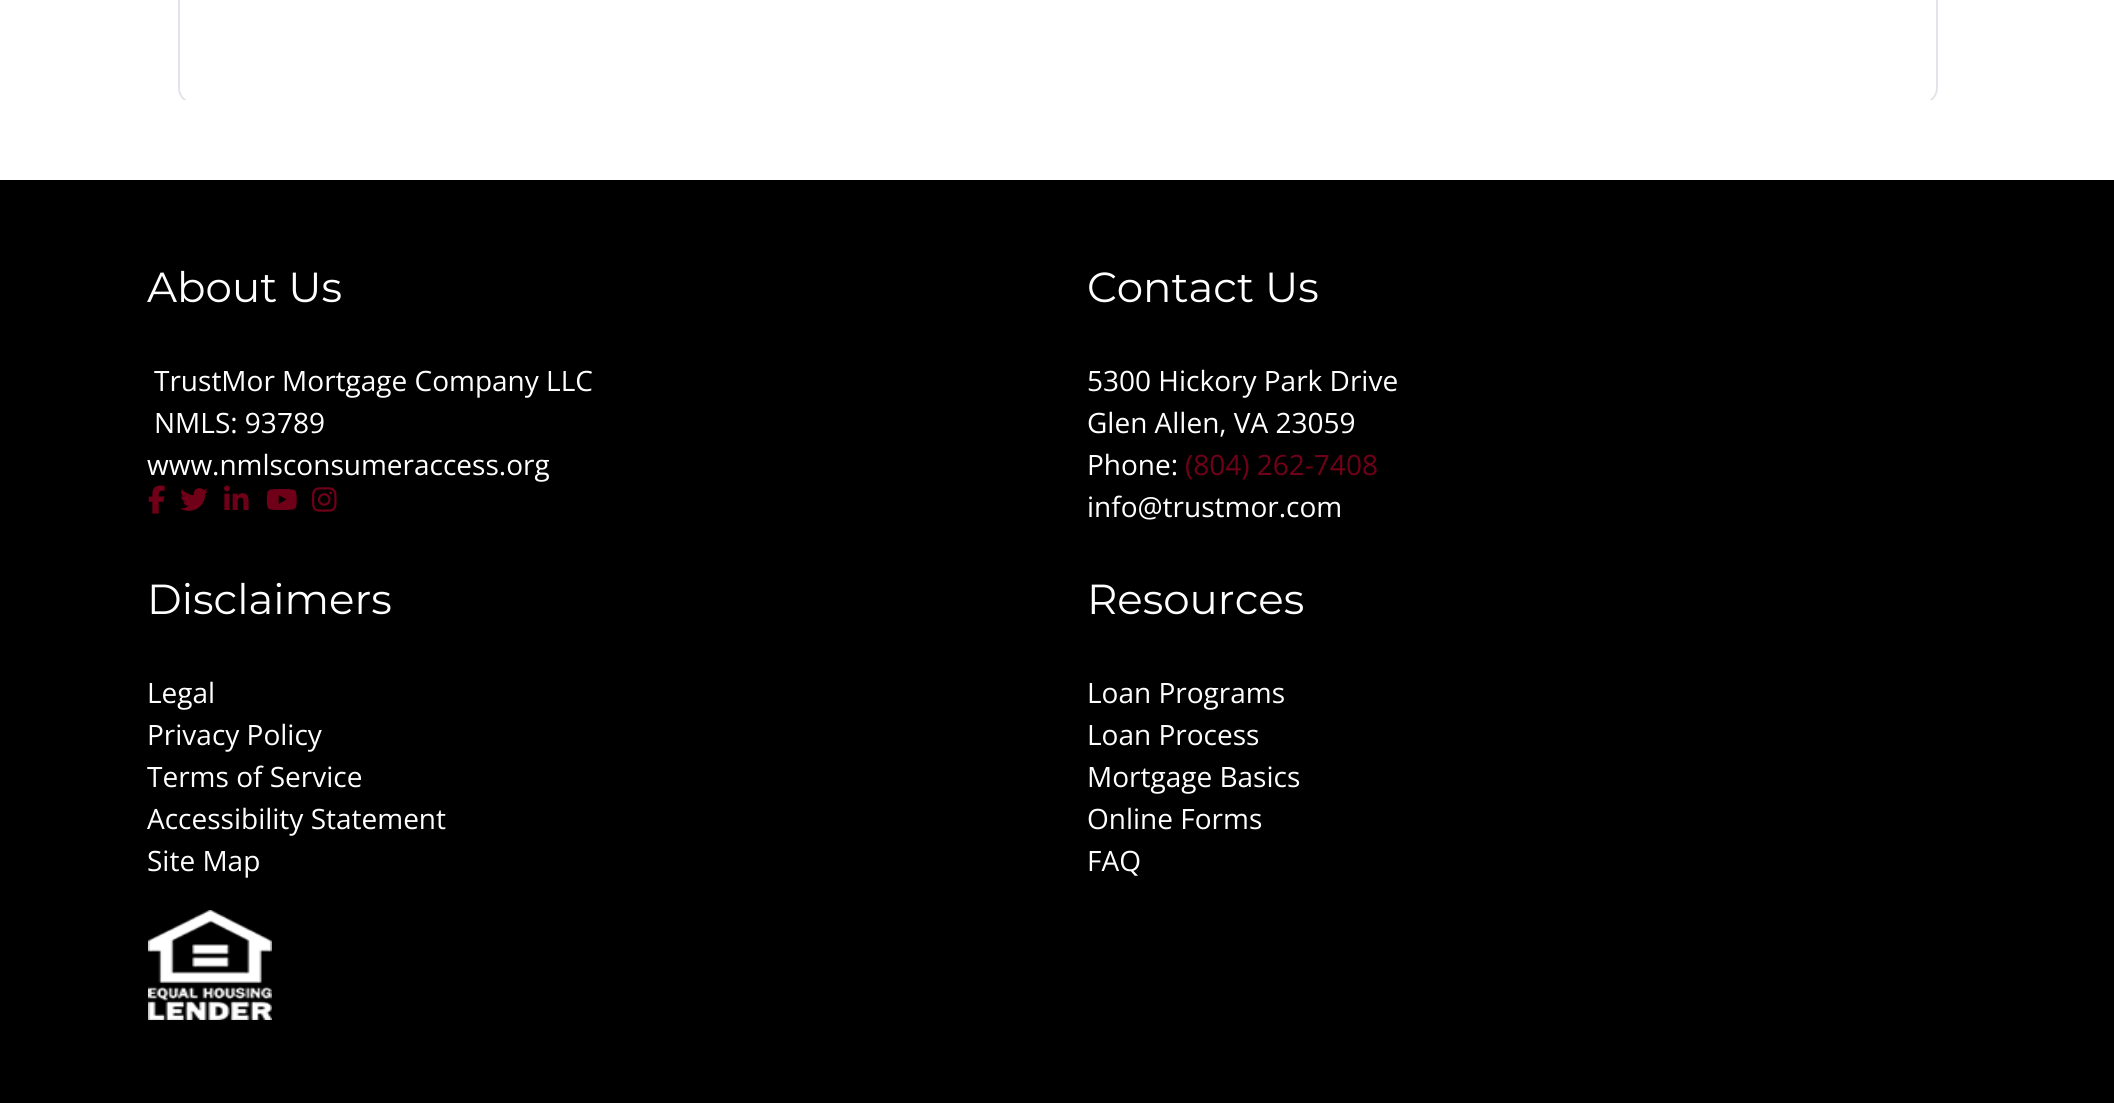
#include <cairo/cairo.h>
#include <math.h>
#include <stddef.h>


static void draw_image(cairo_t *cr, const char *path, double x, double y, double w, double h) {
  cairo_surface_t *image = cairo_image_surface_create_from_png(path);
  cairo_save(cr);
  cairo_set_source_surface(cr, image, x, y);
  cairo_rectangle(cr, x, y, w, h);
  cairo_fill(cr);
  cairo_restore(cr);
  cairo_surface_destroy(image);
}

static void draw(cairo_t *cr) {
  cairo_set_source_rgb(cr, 1, 1, 1);
  cairo_paint(cr);
  draw_image(cr, "images/1.png", 178, 0, 1760, 100);
  cairo_set_source_rgb(cr, 0, 0, 0);
  cairo_rectangle(cr, 0, 180, 2114, 923);
  cairo_fill(cr);
  draw_image(cr, "images/2.png", 148, 485, 17, 29);
  draw_image(cr, "images/3.png", 180, 488, 28, 23);
  draw_image(cr, "images/4.png", 224, 485, 25, 25);
  draw_image(cr, "images/5.png", 266, 489, 31, 21);
  draw_image(cr, "images/6.png", 312, 487, 25, 25);
  draw_image(cr, "images/7.png", 148, 910, 124, 110);
  cairo_select_font_face(cr, "Montserrat", CAIRO_FONT_SLANT_NORMAL, CAIRO_FONT_WEIGHT_NORMAL);
  cairo_set_font_size(cr, 42);
  cairo_set_source_rgb(cr, 1, 1, 1);
  cairo_move_to(cr, 147, 302);
  cairo_show_text(cr, "About Us");
  cairo_select_font_face(cr, "Open Sans", CAIRO_FONT_SLANT_NORMAL, CAIRO_FONT_WEIGHT_NORMAL);
  cairo_set_font_size(cr, 28);
  cairo_move_to(cr, 154, 391);
  cairo_show_text(cr, "TrustMor Mortgage Company LLC");
  cairo_move_to(cr, 154, 433);
  cairo_show_text(cr, "NMLS: 93789");
  cairo_move_to(cr, 147, 475);
  cairo_show_text(cr, "www.nmlsconsumeraccess.org");
  cairo_select_font_face(cr, "Montserrat", CAIRO_FONT_SLANT_NORMAL, CAIRO_FONT_WEIGHT_NORMAL);
  cairo_set_font_size(cr, 42);
  cairo_move_to(cr, 1087, 302);
  cairo_show_text(cr, "Contact Us");
  cairo_select_font_face(cr, "Open Sans", CAIRO_FONT_SLANT_NORMAL, CAIRO_FONT_WEIGHT_NORMAL);
  cairo_set_font_size(cr, 28);
  cairo_move_to(cr, 1087, 391);
  cairo_show_text(cr, "5300 Hickory Park Drive");
  cairo_move_to(cr, 1087, 433);
  cairo_show_text(cr, "Glen Allen, VA 23059");
  cairo_move_to(cr, 1087, 475);
  cairo_show_text(cr, "Phone:");
  cairo_set_source_rgb(cr, 112 / 255.0, 0, 23 / 255.0);
  cairo_move_to(cr, 1185, 475);
  cairo_show_text(cr, "(804) 262-7408");
  cairo_set_source_rgb(cr, 1, 1, 1);
  cairo_move_to(cr, 1087, 517);
  cairo_show_text(cr, "info@trustmor.com");
  cairo_select_font_face(cr, "Montserrat", CAIRO_FONT_SLANT_NORMAL, CAIRO_FONT_WEIGHT_NORMAL);
  cairo_set_font_size(cr, 42);
  cairo_move_to(cr, 147, 614);
  cairo_show_text(cr, "Disclaimers");
  cairo_select_font_face(cr, "Open Sans", CAIRO_FONT_SLANT_NORMAL, CAIRO_FONT_WEIGHT_NORMAL);
  cairo_set_font_size(cr, 28);
  cairo_move_to(cr, 147, 703);
  cairo_show_text(cr, "Legal");
  cairo_move_to(cr, 147, 745);
  cairo_show_text(cr, "Privacy Policy");
  cairo_move_to(cr, 147, 787);
  cairo_show_text(cr, "Terms of Service");
  cairo_move_to(cr, 147, 829);
  cairo_show_text(cr, "Accessibility Statement");
  cairo_move_to(cr, 147, 871);
  cairo_show_text(cr, "Site Map");
  cairo_select_font_face(cr, "Montserrat", CAIRO_FONT_SLANT_NORMAL, CAIRO_FONT_WEIGHT_NORMAL);
  cairo_set_font_size(cr, 42);
  cairo_move_to(cr, 1087, 614);
  cairo_show_text(cr, "Resources");
  cairo_select_font_face(cr, "Open Sans", CAIRO_FONT_SLANT_NORMAL, CAIRO_FONT_WEIGHT_NORMAL);
  cairo_set_font_size(cr, 28);
  cairo_move_to(cr, 1087, 703);
  cairo_show_text(cr, "Loan Programs");
  cairo_move_to(cr, 1087, 745);
  cairo_show_text(cr, "Loan Process");
  cairo_move_to(cr, 1087, 787);
  cairo_show_text(cr, "Mortgage Basics");
  cairo_move_to(cr, 1087, 829);
  cairo_show_text(cr, "Online Forms");
  cairo_move_to(cr, 1087, 871);
  cairo_show_text(cr, "FAQ");
}

int main(void) {
  cairo_surface_t *surface = cairo_image_surface_create(CAIRO_FORMAT_RGB24, 2114, 1103);
  cairo_t *cr = cairo_create(surface);
  cairo_font_options_t *options = cairo_font_options_create();
  cairo_font_options_set_hint_metrics(options, CAIRO_HINT_METRICS_OFF);
  cairo_font_options_set_hint_style(options, CAIRO_HINT_STYLE_NONE);
  cairo_set_font_options(cr, options);
  cairo_set_miter_limit(cr, 4);
  draw(cr);
  cairo_surface_write_to_png(surface, "out.png");
  cairo_font_options_destroy(options);
  cairo_destroy(cr);
  cairo_surface_destroy(surface);
  return 0;
}
